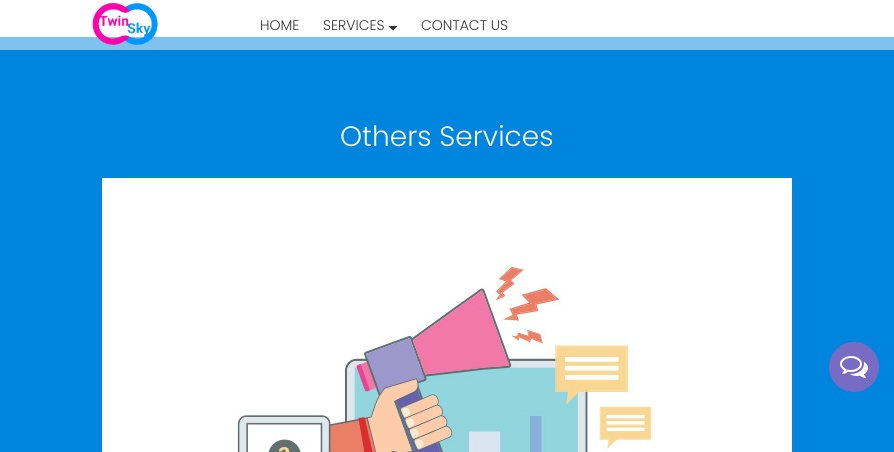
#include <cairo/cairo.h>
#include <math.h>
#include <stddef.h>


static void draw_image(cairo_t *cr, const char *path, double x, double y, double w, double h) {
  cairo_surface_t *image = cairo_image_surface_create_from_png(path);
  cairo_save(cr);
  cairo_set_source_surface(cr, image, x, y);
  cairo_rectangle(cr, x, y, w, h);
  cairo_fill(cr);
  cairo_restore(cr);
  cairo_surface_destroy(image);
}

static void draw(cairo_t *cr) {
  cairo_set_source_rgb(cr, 1, 1, 1);
  cairo_paint(cr);
  cairo_set_source_rgb(cr, 128 / 255.0, 194 / 255.0, 239 / 255.0);
  cairo_rectangle(cr, 0, 37, 894, 13);
  cairo_fill(cr);
  draw_image(cr, "images/1.png", 92, 3, 67, 43);
  draw_image(cr, "images/2.png", 389, 26, 8, 5);
  cairo_set_source_rgb(cr, 0, 133 / 255.0, 223 / 255.0);
  cairo_rectangle(cr, 0, 50, 894, 402);
  cairo_fill(cr);
  cairo_set_source_rgb(cr, 1, 1, 1);
  cairo_rectangle(cr, 102, 178, 690, 274);
  cairo_fill(cr);
  draw_image(cr, "images/3.png", 236, 266, 417, 186);
  cairo_set_source_rgb(cr, 119 / 255.0, 107 / 255.0, 196 / 255.0);
  cairo_arc(cr, 854, 367, 25, 0, 2 * M_PI);
  cairo_fill(cr);
  draw_image(cr, "images/4.png", 840, 356, 28, 22);
  cairo_select_font_face(cr, "Poppins Light", CAIRO_FONT_SLANT_NORMAL, CAIRO_FONT_WEIGHT_NORMAL);
  cairo_set_font_size(cr, 14);
  cairo_set_source_rgb(cr, 51 / 255.0, 51 / 255.0, 51 / 255.0);
  cairo_move_to(cr, 260, 30);
  cairo_show_text(cr, "HOME");
  cairo_move_to(cr, 323, 30);
  cairo_show_text(cr, "SERVICES");
  cairo_move_to(cr, 421, 30);
  cairo_show_text(cr, "CONTACT US");
  cairo_set_font_size(cr, 28);
  cairo_set_source_rgb(cr, 1, 1, 1);
  cairo_move_to(cr, 340, 146);
  cairo_show_text(cr, "Others Services");
}

int main(void) {
  cairo_surface_t *surface = cairo_image_surface_create(CAIRO_FORMAT_RGB24, 894, 452);
  cairo_t *cr = cairo_create(surface);
  cairo_font_options_t *options = cairo_font_options_create();
  cairo_font_options_set_hint_metrics(options, CAIRO_HINT_METRICS_OFF);
  cairo_font_options_set_hint_style(options, CAIRO_HINT_STYLE_NONE);
  cairo_set_font_options(cr, options);
  cairo_set_miter_limit(cr, 4);
  draw(cr);
  cairo_surface_write_to_png(surface, "out.png");
  cairo_font_options_destroy(options);
  cairo_destroy(cr);
  cairo_surface_destroy(surface);
  return 0;
}
